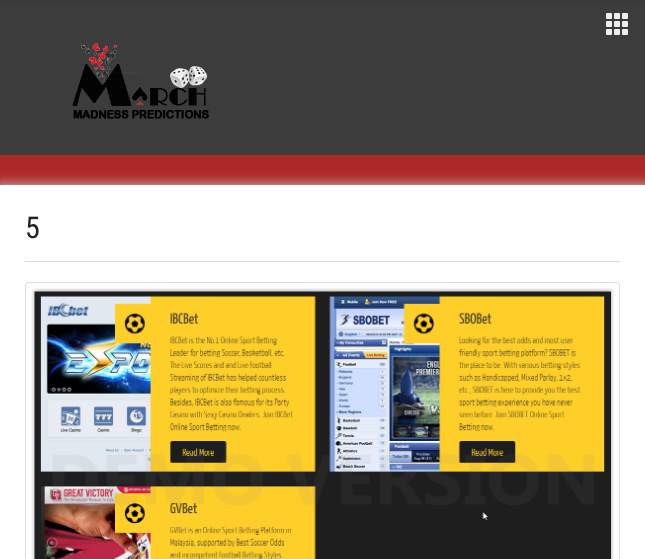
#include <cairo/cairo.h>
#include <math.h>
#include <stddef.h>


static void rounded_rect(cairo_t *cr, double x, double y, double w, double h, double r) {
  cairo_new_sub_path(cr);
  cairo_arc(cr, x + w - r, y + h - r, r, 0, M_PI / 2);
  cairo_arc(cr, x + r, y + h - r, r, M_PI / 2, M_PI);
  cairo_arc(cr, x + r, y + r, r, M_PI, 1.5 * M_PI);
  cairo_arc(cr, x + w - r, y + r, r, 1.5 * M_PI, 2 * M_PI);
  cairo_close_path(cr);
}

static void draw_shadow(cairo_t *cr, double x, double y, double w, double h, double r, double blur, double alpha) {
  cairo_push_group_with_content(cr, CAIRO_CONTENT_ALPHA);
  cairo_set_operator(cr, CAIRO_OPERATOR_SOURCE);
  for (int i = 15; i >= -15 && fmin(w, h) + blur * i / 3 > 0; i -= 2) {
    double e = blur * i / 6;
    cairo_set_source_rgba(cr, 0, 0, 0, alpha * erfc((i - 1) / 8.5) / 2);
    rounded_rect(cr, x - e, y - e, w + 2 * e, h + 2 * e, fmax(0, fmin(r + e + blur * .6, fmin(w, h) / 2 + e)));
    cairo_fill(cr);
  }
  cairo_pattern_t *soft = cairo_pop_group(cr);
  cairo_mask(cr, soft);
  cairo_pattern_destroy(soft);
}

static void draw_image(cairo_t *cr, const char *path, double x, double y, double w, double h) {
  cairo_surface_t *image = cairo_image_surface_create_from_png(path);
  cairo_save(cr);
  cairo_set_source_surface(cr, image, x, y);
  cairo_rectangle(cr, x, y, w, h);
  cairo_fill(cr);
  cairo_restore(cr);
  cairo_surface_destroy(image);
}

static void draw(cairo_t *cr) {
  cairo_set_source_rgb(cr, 175 / 255.0, 40 / 255.0, 40 / 255.0);
  cairo_paint(cr);
  cairo_set_source_rgb(cr, 60 / 255.0, 60 / 255.0, 60 / 255.0);
  cairo_rectangle(cr, 0, 5, 645, 150);
  cairo_fill(cr);
  cairo_set_source_rgb(cr, 58 / 255.0, 58 / 255.0, 58 / 255.0);
  cairo_rectangle(cr, 0, 0, 645, 5);
  cairo_fill(cr);
  draw_image(cr, "images/1.png", 606, 13, 22, 22);
  draw_image(cr, "images/2.png", 72, 43, 137, 76);
  cairo_set_source_rgb(cr, 204 / 255.0, 204 / 255.0, 204 / 255.0);
  draw_shadow(cr, 0, 185, 645, 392, 0, 6, 1);
  cairo_set_source_rgb(cr, 1, 1, 1);
  cairo_rectangle(cr, 0, 185, 645, 374);
  cairo_fill(cr);
  cairo_set_source_rgb(cr, 218 / 255.0, 218 / 255.0, 218 / 255.0);
  cairo_rectangle(cr, 25, 261, 595, 1);
  cairo_fill(cr);
  rounded_rect(cr, 25.5, 282.5, 594, 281, 3.5);
  cairo_set_source_rgb(cr, 221 / 255.0, 221 / 255.0, 221 / 255.0);
  cairo_set_line_width(cr, 1);
  cairo_stroke(cr);
  draw_image(cr, "images/3.png", 31, 288, 583, 271);
  cairo_select_font_face(cr, "Roboto Condensed", CAIRO_FONT_SLANT_NORMAL, CAIRO_FONT_WEIGHT_NORMAL);
  cairo_set_font_size(cr, 30);
  cairo_set_source_rgb(cr, 34 / 255.0, 34 / 255.0, 34 / 255.0);
  cairo_move_to(cr, 25, 238);
  cairo_show_text(cr, "5");
}

int main(void) {
  cairo_surface_t *surface = cairo_image_surface_create(CAIRO_FORMAT_RGB24, 645, 559);
  cairo_t *cr = cairo_create(surface);
  cairo_font_options_t *options = cairo_font_options_create();
  cairo_font_options_set_hint_metrics(options, CAIRO_HINT_METRICS_OFF);
  cairo_font_options_set_hint_style(options, CAIRO_HINT_STYLE_NONE);
  cairo_set_font_options(cr, options);
  cairo_set_miter_limit(cr, 4);
  draw(cr);
  cairo_surface_write_to_png(surface, "out.png");
  cairo_font_options_destroy(options);
  cairo_destroy(cr);
  cairo_surface_destroy(surface);
  return 0;
}
